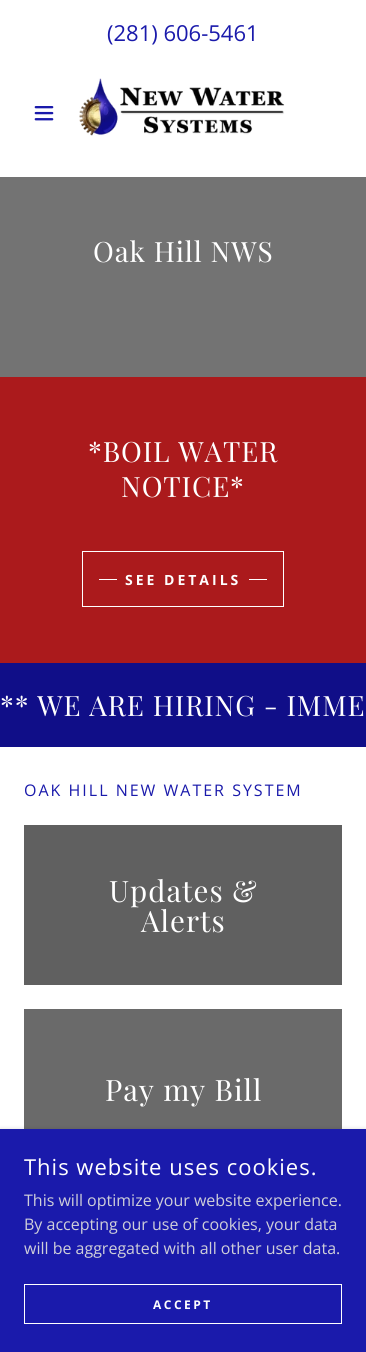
#include <cairo/cairo.h>
#include <math.h>
#include <stddef.h>


static void draw_spaced(cairo_t *cr, double x, double y, const char *s, double letter, double word) {
  cairo_move_to(cr, x, y);
  while (*s) {
    char ch[5] = {0};
    int n = 0;
    do ch[n++] = *s++; while ((*s & 0xC0) == 0x80);
    cairo_show_text(cr, ch);
    cairo_rel_move_to(cr, letter + word * (*ch == ' '), 0);
  }
}

static void rounded_rect(cairo_t *cr, double x, double y, double w, double h, double r) {
  cairo_new_sub_path(cr);
  cairo_arc(cr, x + w - r, y + h - r, r, 0, M_PI / 2);
  cairo_arc(cr, x + r, y + h - r, r, M_PI / 2, M_PI);
  cairo_arc(cr, x + r, y + r, r, M_PI, 1.5 * M_PI);
  cairo_arc(cr, x + w - r, y + r, r, 1.5 * M_PI, 2 * M_PI);
  cairo_close_path(cr);
}

static void draw_shadow(cairo_t *cr, double x, double y, double w, double h, double r, double blur, double alpha) {
  cairo_push_group_with_content(cr, CAIRO_CONTENT_ALPHA);
  cairo_set_operator(cr, CAIRO_OPERATOR_SOURCE);
  for (int i = 15; i >= -15 && fmin(w, h) + blur * i / 3 > 0; i -= 2) {
    double e = blur * i / 6;
    cairo_set_source_rgba(cr, 0, 0, 0, alpha * erfc((i - 1) / 8.5) / 2);
    rounded_rect(cr, x - e, y - e, w + 2 * e, h + 2 * e, fmax(0, fmin(r + e + blur * .6, fmin(w, h) / 2 + e)));
    cairo_fill(cr);
  }
  cairo_pattern_t *soft = cairo_pop_group(cr);
  cairo_mask(cr, soft);
  cairo_pattern_destroy(soft);
}

static void draw_image(cairo_t *cr, const char *path, double x, double y, double w, double h) {
  cairo_surface_t *image = cairo_image_surface_create_from_png(path);
  cairo_save(cr);
  cairo_set_source_surface(cr, image, x, y);
  cairo_rectangle(cr, x, y, w, h);
  cairo_fill(cr);
  cairo_restore(cr);
  cairo_surface_destroy(image);
}

static void draw(cairo_t *cr) {
  cairo_set_source_rgb(cr, 1, 1, 1);
  cairo_paint(cr);
  draw_image(cr, "images/1.png", 34, 106, 20, 15);
  draw_image(cr, "images/2.png", 79, 78, 206, 58);
  cairo_set_source_rgb(cr, 115 / 255.0, 115 / 255.0, 115 / 255.0);
  cairo_rectangle(cr, 0, 177, 366, 200);
  cairo_fill(cr);
  cairo_set_source_rgb(cr, 171 / 255.0, 26 / 255.0, 28 / 255.0);
  cairo_rectangle(cr, 0, 377, 366, 286);
  cairo_fill(cr);
  cairo_rectangle(cr, 82.5, 551.5, 201, 55);
  cairo_set_source_rgb(cr, 1, 1, 1);
  cairo_set_line_width(cr, 1);
  cairo_stroke(cr);
  cairo_rectangle(cr, 99, 579, 18, 1);
  cairo_fill(cr);
  cairo_rectangle(cr, 249, 579, 18, 1);
  cairo_fill(cr);
  cairo_set_source_rgb(cr, 16 / 255.0, 14 / 255.0, 136 / 255.0);
  cairo_rectangle(cr, 0, 663, 366, 84);
  cairo_fill(cr);
  cairo_set_source_rgb(cr, 96 / 255.0, 96 / 255.0, 96 / 255.0);
  cairo_rectangle(cr, 24, 825, 318, 160);
  cairo_fill(cr);
  cairo_set_source_rgb(cr, 106 / 255.0, 106 / 255.0, 106 / 255.0);
  cairo_rectangle(cr, 24, 1009, 318, 120);
  cairo_fill(cr);
  cairo_set_source_rgb(cr, 0, 0, 0);
  draw_shadow(cr, 0, 1131, 366, 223, 0, 3, 0.3);
  cairo_set_source_rgb(cr, 26 / 255.0, 26 / 255.0, 171 / 255.0);
  cairo_rectangle(cr, 0, 1129, 366, 223);
  cairo_fill(cr);
  cairo_rectangle(cr, 24.5, 1284.5, 317, 39);
  cairo_set_source_rgb(cr, 1, 1, 1);
  cairo_stroke(cr);
  cairo_select_font_face(cr, "Open Sans", CAIRO_FONT_SLANT_NORMAL, CAIRO_FONT_WEIGHT_NORMAL);
  cairo_set_font_size(cr, 22);
  cairo_set_source_rgb(cr, 26 / 255.0, 26 / 255.0, 171 / 255.0);
  cairo_move_to(cr, 107, 41);
  cairo_show_text(cr, "(281) 606-5461");
  cairo_select_font_face(cr, "Playfair Display", CAIRO_FONT_SLANT_NORMAL, CAIRO_FONT_WEIGHT_NORMAL);
  cairo_set_font_size(cr, 28);
  cairo_set_source_rgb(cr, 1, 1, 1);
  draw_spaced(cr, 93, 262, "Oak Hill NWS", 0.9, 0);
  draw_spaced(cr, 88, 462, "*BOIL WATER", 0.9, 0);
  draw_spaced(cr, 121, 497, "NOTICE*", 0.9, 0);
  cairo_select_font_face(cr, "Open Sans", CAIRO_FONT_SLANT_NORMAL, CAIRO_FONT_WEIGHT_BOLD);
  cairo_set_font_size(cr, 14);
  draw_spaced(cr, 125, 585, "SEE DETAILS", 3, 0);
  cairo_select_font_face(cr, "Playfair Display", CAIRO_FONT_SLANT_NORMAL, CAIRO_FONT_WEIGHT_NORMAL);
  cairo_set_font_size(cr, 28);
  draw_spaced(cr, 0, 716, "** WE ARE HIRING - IMME", 0.9, 0);
  cairo_select_font_face(cr, "Open Sans", CAIRO_FONT_SLANT_NORMAL, CAIRO_FONT_WEIGHT_NORMAL);
  cairo_set_font_size(cr, 16);
  cairo_set_source_rgb(cr, 26 / 255.0, 26 / 255.0, 171 / 255.0);
  draw_spaced(cr, 24, 796, "OAK HILL NEW WATER SYSTEM", 2, 0);
  cairo_select_font_face(cr, "Playfair Display", CAIRO_FONT_SLANT_NORMAL, CAIRO_FONT_WEIGHT_NORMAL);
  cairo_set_font_size(cr, 29.5);
  cairo_set_source_rgb(cr, 1, 1, 1);
  draw_spaced(cr, 109, 902, "Updates &", 1, 0);
  draw_spaced(cr, 141, 932, "Alerts", 1, 0);
  draw_spaced(cr, 105, 1101, "Pay my Bill", 1, 0);
  cairo_select_font_face(cr, "Open Sans", CAIRO_FONT_SLANT_NORMAL, CAIRO_FONT_WEIGHT_NORMAL);
  cairo_set_font_size(cr, 22);
  draw_spaced(cr, 24, 1175, "This website uses cookies.", 1, 0);
  cairo_set_font_size(cr, 16);
  cairo_set_source_rgb(cr, 207 / 255.0, 207 / 255.0, 217 / 255.0);
  cairo_move_to(cr, 24, 1206);
  cairo_show_text(cr, "This will optimize your website experience.");
  cairo_move_to(cr, 24, 1230);
  cairo_show_text(cr, "By accepting our use of cookies, your data");
  cairo_move_to(cr, 24, 1254);
  cairo_show_text(cr, "will be aggregated with all other user data.");
  cairo_select_font_face(cr, "Open Sans", CAIRO_FONT_SLANT_NORMAL, CAIRO_FONT_WEIGHT_BOLD);
  cairo_set_font_size(cr, 12);
  cairo_set_source_rgb(cr, 1, 1, 1);
  draw_spaced(cr, 153, 1309, "ACCEPT", 2.5, 0);
}

int main(void) {
  cairo_surface_t *surface = cairo_image_surface_create(CAIRO_FORMAT_RGB24, 366, 1352);
  cairo_t *cr = cairo_create(surface);
  cairo_font_options_t *options = cairo_font_options_create();
  cairo_font_options_set_hint_metrics(options, CAIRO_HINT_METRICS_OFF);
  cairo_font_options_set_hint_style(options, CAIRO_HINT_STYLE_NONE);
  cairo_set_font_options(cr, options);
  cairo_set_miter_limit(cr, 4);
  draw(cr);
  cairo_surface_write_to_png(surface, "out.png");
  cairo_font_options_destroy(options);
  cairo_destroy(cr);
  cairo_surface_destroy(surface);
  return 0;
}
